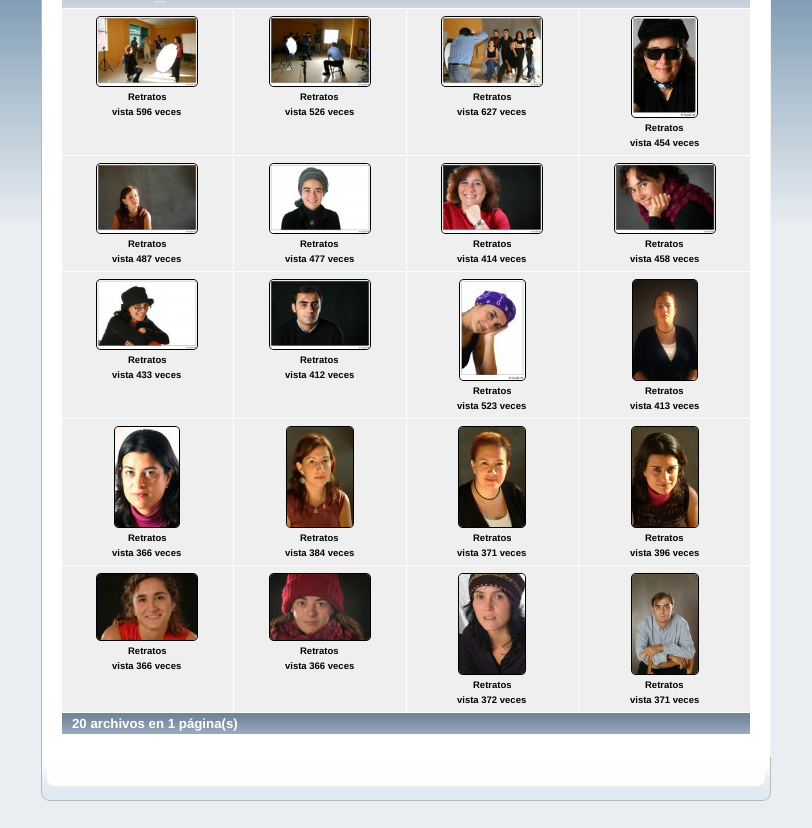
#include <cairo/cairo.h>
#include <math.h>
#include <stddef.h>


static void rounded_rect(cairo_t *cr, double x, double y, double w, double h, double r) {
  cairo_new_sub_path(cr);
  cairo_arc(cr, x + w - r, y + h - r, r, 0, M_PI / 2);
  cairo_arc(cr, x + r, y + h - r, r, M_PI / 2, M_PI);
  cairo_arc(cr, x + r, y + r, r, M_PI, 1.5 * M_PI);
  cairo_arc(cr, x + w - r, y + r, r, 1.5 * M_PI, 2 * M_PI);
  cairo_close_path(cr);
}

static void draw_image(cairo_t *cr, const char *path, double x, double y, double w, double h) {
  cairo_surface_t *image = cairo_image_surface_create_from_png(path);
  cairo_save(cr);
  cairo_set_source_surface(cr, image, x, y);
  cairo_rectangle(cr, x, y, w, h);
  cairo_fill(cr);
  cairo_restore(cr);
  cairo_surface_destroy(image);
}

static void draw(cairo_t *cr) {
  cairo_set_source_rgb(cr, 233 / 255.0, 238 / 255.0, 242 / 255.0);
  cairo_paint(cr);
  draw_image(cr, "images/1.png", 0, 0, 812, 223);
  cairo_set_source_rgb(cr, 1, 1, 1);
  cairo_rectangle(cr, 42, 0, 728, 757);
  cairo_fill(cr);
  cairo_set_source_rgb(cr, 183 / 255.0, 183 / 255.0, 183 / 255.0);
  cairo_rectangle(cr, 41, 0, 1, 757);
  cairo_fill(cr);
  cairo_set_source_rgb(cr, 242 / 255.0, 242 / 255.0, 242 / 255.0);
  cairo_rectangle(cr, 770, 0, 1, 757);
  cairo_fill(cr);
  draw_image(cr, "images/2.png", 62, 0, 688, 8);
  cairo_set_source_rgb(cr, 239 / 255.0, 239 / 255.0, 239 / 255.0);
  cairo_rectangle(cr, 62, 9, 171, 146);
  cairo_fill(cr);
  rounded_rect(cr, 96.5, 16.5, 101, 70, 4.5);
  cairo_set_source_rgb(cr, 0, 0, 0);
  cairo_set_line_width(cr, 1);
  cairo_stroke(cr);
  draw_image(cr, "images/3.png", 97, 17, 100, 69);
  cairo_set_source_rgb(cr, 239 / 255.0, 239 / 255.0, 239 / 255.0);
  cairo_rectangle(cr, 234, 9, 172, 146);
  cairo_fill(cr);
  rounded_rect(cr, 269.5, 16.5, 101, 70, 4.5);
  cairo_set_source_rgb(cr, 0, 0, 0);
  cairo_stroke(cr);
  draw_image(cr, "images/4.png", 270, 17, 100, 69);
  cairo_set_source_rgb(cr, 239 / 255.0, 239 / 255.0, 239 / 255.0);
  cairo_rectangle(cr, 407, 9, 171, 146);
  cairo_fill(cr);
  rounded_rect(cr, 441.5, 16.5, 101, 70, 4.5);
  cairo_set_source_rgb(cr, 0, 0, 0);
  cairo_stroke(cr);
  draw_image(cr, "images/5.png", 442, 17, 100, 69);
  cairo_set_source_rgb(cr, 239 / 255.0, 239 / 255.0, 239 / 255.0);
  cairo_rectangle(cr, 579, 9, 171, 146);
  cairo_fill(cr);
  rounded_rect(cr, 631.5, 16.5, 66, 101, 4.5);
  cairo_set_source_rgb(cr, 0, 0, 0);
  cairo_stroke(cr);
  draw_image(cr, "images/6.png", 632, 17, 65, 100);
  cairo_set_source_rgb(cr, 239 / 255.0, 239 / 255.0, 239 / 255.0);
  cairo_rectangle(cr, 62, 156, 171, 115);
  cairo_fill(cr);
  rounded_rect(cr, 96.5, 163.5, 101, 70, 4.5);
  cairo_set_source_rgb(cr, 0, 0, 0);
  cairo_stroke(cr);
  draw_image(cr, "images/7.png", 97, 164, 100, 69);
  cairo_set_source_rgb(cr, 239 / 255.0, 239 / 255.0, 239 / 255.0);
  cairo_rectangle(cr, 234, 156, 172, 115);
  cairo_fill(cr);
  rounded_rect(cr, 269.5, 163.5, 101, 70, 4.5);
  cairo_set_source_rgb(cr, 0, 0, 0);
  cairo_stroke(cr);
  draw_image(cr, "images/8.png", 270, 164, 100, 69);
  cairo_set_source_rgb(cr, 239 / 255.0, 239 / 255.0, 239 / 255.0);
  cairo_rectangle(cr, 407, 156, 171, 115);
  cairo_fill(cr);
  rounded_rect(cr, 441.5, 163.5, 101, 70, 4.5);
  cairo_set_source_rgb(cr, 0, 0, 0);
  cairo_stroke(cr);
  draw_image(cr, "images/9.png", 442, 164, 100, 69);
  cairo_set_source_rgb(cr, 239 / 255.0, 239 / 255.0, 239 / 255.0);
  cairo_rectangle(cr, 579, 156, 171, 115);
  cairo_fill(cr);
  rounded_rect(cr, 614.5, 163.5, 101, 70, 4.5);
  cairo_set_source_rgb(cr, 0, 0, 0);
  cairo_stroke(cr);
  draw_image(cr, "images/10.png", 615, 164, 100, 69);
  cairo_set_source_rgb(cr, 239 / 255.0, 239 / 255.0, 239 / 255.0);
  cairo_rectangle(cr, 62, 272, 171, 146);
  cairo_fill(cr);
  rounded_rect(cr, 96.5, 279.5, 101, 70, 4.5);
  cairo_set_source_rgb(cr, 0, 0, 0);
  cairo_stroke(cr);
  draw_image(cr, "images/11.png", 97, 280, 100, 69);
  cairo_set_source_rgb(cr, 239 / 255.0, 239 / 255.0, 239 / 255.0);
  cairo_rectangle(cr, 234, 272, 172, 146);
  cairo_fill(cr);
  rounded_rect(cr, 269.5, 279.5, 101, 70, 4.5);
  cairo_set_source_rgb(cr, 0, 0, 0);
  cairo_stroke(cr);
  draw_image(cr, "images/12.png", 270, 280, 100, 69);
  cairo_set_source_rgb(cr, 239 / 255.0, 239 / 255.0, 239 / 255.0);
  cairo_rectangle(cr, 407, 272, 171, 146);
  cairo_fill(cr);
  rounded_rect(cr, 459.5, 279.5, 66, 101, 4.5);
  cairo_set_source_rgb(cr, 0, 0, 0);
  cairo_stroke(cr);
  draw_image(cr, "images/13.png", 460, 280, 65, 100);
  cairo_set_source_rgb(cr, 239 / 255.0, 239 / 255.0, 239 / 255.0);
  cairo_rectangle(cr, 579, 272, 171, 146);
  cairo_fill(cr);
  rounded_rect(cr, 632.5, 279.5, 65, 101, 4.5);
  cairo_set_source_rgb(cr, 0, 0, 0);
  cairo_stroke(cr);
  draw_image(cr, "images/14.png", 633, 280, 64, 100);
  cairo_set_source_rgb(cr, 239 / 255.0, 239 / 255.0, 239 / 255.0);
  cairo_rectangle(cr, 62, 419, 171, 146);
  cairo_fill(cr);
  rounded_rect(cr, 114.5, 426.5, 65, 101, 4.5);
  cairo_set_source_rgb(cr, 0, 0, 0);
  cairo_stroke(cr);
  draw_image(cr, "images/15.png", 115, 427, 64, 100);
  cairo_set_source_rgb(cr, 239 / 255.0, 239 / 255.0, 239 / 255.0);
  cairo_rectangle(cr, 234, 419, 172, 146);
  cairo_fill(cr);
  rounded_rect(cr, 286.5, 426.5, 67, 101, 4.5);
  cairo_set_source_rgb(cr, 0, 0, 0);
  cairo_stroke(cr);
  draw_image(cr, "images/16.png", 287, 427, 66, 100);
  cairo_set_source_rgb(cr, 239 / 255.0, 239 / 255.0, 239 / 255.0);
  cairo_rectangle(cr, 407, 419, 171, 146);
  cairo_fill(cr);
  rounded_rect(cr, 458.5, 426.5, 67, 101, 4.5);
  cairo_set_source_rgb(cr, 0, 0, 0);
  cairo_stroke(cr);
  draw_image(cr, "images/17.png", 459, 427, 66, 100);
  cairo_set_source_rgb(cr, 239 / 255.0, 239 / 255.0, 239 / 255.0);
  cairo_rectangle(cr, 579, 419, 171, 146);
  cairo_fill(cr);
  rounded_rect(cr, 631.5, 426.5, 67, 101, 4.5);
  cairo_set_source_rgb(cr, 0, 0, 0);
  cairo_stroke(cr);
  draw_image(cr, "images/18.png", 632, 427, 66, 100);
  cairo_set_source_rgb(cr, 239 / 255.0, 239 / 255.0, 239 / 255.0);
  cairo_rectangle(cr, 62, 566, 171, 146);
  cairo_fill(cr);
  rounded_rect(cr, 96.5, 573.5, 101, 67, 4.5);
  cairo_set_source_rgb(cr, 0, 0, 0);
  cairo_stroke(cr);
  draw_image(cr, "images/19.png", 97, 574, 100, 66);
  cairo_set_source_rgb(cr, 239 / 255.0, 239 / 255.0, 239 / 255.0);
  cairo_rectangle(cr, 234, 566, 172, 146);
  cairo_fill(cr);
  rounded_rect(cr, 269.5, 573.5, 101, 67, 4.5);
  cairo_set_source_rgb(cr, 0, 0, 0);
  cairo_stroke(cr);
  draw_image(cr, "images/20.png", 270, 574, 100, 66);
  cairo_set_source_rgb(cr, 239 / 255.0, 239 / 255.0, 239 / 255.0);
  cairo_rectangle(cr, 407, 566, 171, 146);
  cairo_fill(cr);
  rounded_rect(cr, 458.5, 573.5, 67, 101, 4.5);
  cairo_set_source_rgb(cr, 0, 0, 0);
  cairo_stroke(cr);
  draw_image(cr, "images/21.png", 459, 574, 66, 100);
  cairo_set_source_rgb(cr, 239 / 255.0, 239 / 255.0, 239 / 255.0);
  cairo_rectangle(cr, 579, 566, 171, 146);
  cairo_fill(cr);
  rounded_rect(cr, 631.5, 573.5, 67, 101, 4.5);
  cairo_set_source_rgb(cr, 0, 0, 0);
  cairo_stroke(cr);
  draw_image(cr, "images/22.png", 632, 574, 66, 100);
  draw_image(cr, "images/23.png", 62, 713, 688, 21);
  draw_image(cr, "images/24.png", 41, 757, 717, 44);
  draw_image(cr, "images/25.png", 758, 757, 13, 44);
  cairo_select_font_face(cr, "Liberation Sans", CAIRO_FONT_SLANT_NORMAL, CAIRO_FONT_WEIGHT_BOLD);
  cairo_set_font_size(cr, 18);
  cairo_set_source_rgb(cr, 1, 1, 1);
  cairo_move_to(cr, 155, 0);
  cairo_show_text(cr, "_");
  cairo_set_font_size(cr, 9.5);
  cairo_set_source_rgb(cr, 0, 0, 0);
  cairo_move_to(cr, 128, 100);
  cairo_show_text(cr, "Retratos");
  cairo_move_to(cr, 112, 115);
  cairo_show_text(cr, "vista 596 veces");
  cairo_move_to(cr, 300, 100);
  cairo_show_text(cr, "Retratos");
  cairo_move_to(cr, 285, 115);
  cairo_show_text(cr, "vista 526 veces");
  cairo_move_to(cr, 473, 100);
  cairo_show_text(cr, "Retratos");
  cairo_move_to(cr, 457, 115);
  cairo_show_text(cr, "vista 627 veces");
  cairo_move_to(cr, 645, 131);
  cairo_show_text(cr, "Retratos");
  cairo_move_to(cr, 630, 146);
  cairo_show_text(cr, "vista 454 veces");
  cairo_move_to(cr, 128, 247);
  cairo_show_text(cr, "Retratos");
  cairo_move_to(cr, 112, 262);
  cairo_show_text(cr, "vista 487 veces");
  cairo_move_to(cr, 300, 247);
  cairo_show_text(cr, "Retratos");
  cairo_move_to(cr, 285, 262);
  cairo_show_text(cr, "vista 477 veces");
  cairo_move_to(cr, 473, 247);
  cairo_show_text(cr, "Retratos");
  cairo_move_to(cr, 457, 262);
  cairo_show_text(cr, "vista 414 veces");
  cairo_move_to(cr, 645, 247);
  cairo_show_text(cr, "Retratos");
  cairo_move_to(cr, 630, 262);
  cairo_show_text(cr, "vista 458 veces");
  cairo_move_to(cr, 128, 363);
  cairo_show_text(cr, "Retratos");
  cairo_move_to(cr, 112, 378);
  cairo_show_text(cr, "vista 433 veces");
  cairo_move_to(cr, 300, 363);
  cairo_show_text(cr, "Retratos");
  cairo_move_to(cr, 285, 378);
  cairo_show_text(cr, "vista 412 veces");
  cairo_move_to(cr, 473, 394);
  cairo_show_text(cr, "Retratos");
  cairo_move_to(cr, 457, 409);
  cairo_show_text(cr, "vista 523 veces");
  cairo_move_to(cr, 645, 394);
  cairo_show_text(cr, "Retratos");
  cairo_move_to(cr, 630, 409);
  cairo_show_text(cr, "vista 413 veces");
  cairo_move_to(cr, 128, 541);
  cairo_show_text(cr, "Retratos");
  cairo_move_to(cr, 112, 556);
  cairo_show_text(cr, "vista 366 veces");
  cairo_move_to(cr, 300, 541);
  cairo_show_text(cr, "Retratos");
  cairo_move_to(cr, 285, 556);
  cairo_show_text(cr, "vista 384 veces");
  cairo_move_to(cr, 473, 541);
  cairo_show_text(cr, "Retratos");
  cairo_move_to(cr, 457, 556);
  cairo_show_text(cr, "vista 371 veces");
  cairo_move_to(cr, 645, 541);
  cairo_show_text(cr, "Retratos");
  cairo_move_to(cr, 630, 556);
  cairo_show_text(cr, "vista 396 veces");
  cairo_move_to(cr, 128, 654);
  cairo_show_text(cr, "Retratos");
  cairo_move_to(cr, 112, 669);
  cairo_show_text(cr, "vista 366 veces");
  cairo_move_to(cr, 300, 654);
  cairo_show_text(cr, "Retratos");
  cairo_move_to(cr, 285, 669);
  cairo_show_text(cr, "vista 366 veces");
  cairo_move_to(cr, 473, 688);
  cairo_show_text(cr, "Retratos");
  cairo_move_to(cr, 457, 703);
  cairo_show_text(cr, "vista 372 veces");
  cairo_move_to(cr, 645, 688);
  cairo_show_text(cr, "Retratos");
  cairo_move_to(cr, 630, 703);
  cairo_show_text(cr, "vista 371 veces");
  cairo_set_font_size(cr, 13.25);
  cairo_set_source_rgb(cr, 1, 1, 1);
  cairo_move_to(cr, 72, 728);
  cairo_show_text(cr, "20 archivos en 1 página(s)");
}

int main(void) {
  cairo_surface_t *surface = cairo_image_surface_create(CAIRO_FORMAT_RGB24, 812, 828);
  cairo_t *cr = cairo_create(surface);
  cairo_font_options_t *options = cairo_font_options_create();
  cairo_font_options_set_hint_metrics(options, CAIRO_HINT_METRICS_OFF);
  cairo_font_options_set_hint_style(options, CAIRO_HINT_STYLE_NONE);
  cairo_set_font_options(cr, options);
  cairo_set_miter_limit(cr, 4);
  draw(cr);
  cairo_surface_write_to_png(surface, "out.png");
  cairo_font_options_destroy(options);
  cairo_destroy(cr);
  cairo_surface_destroy(surface);
  return 0;
}
